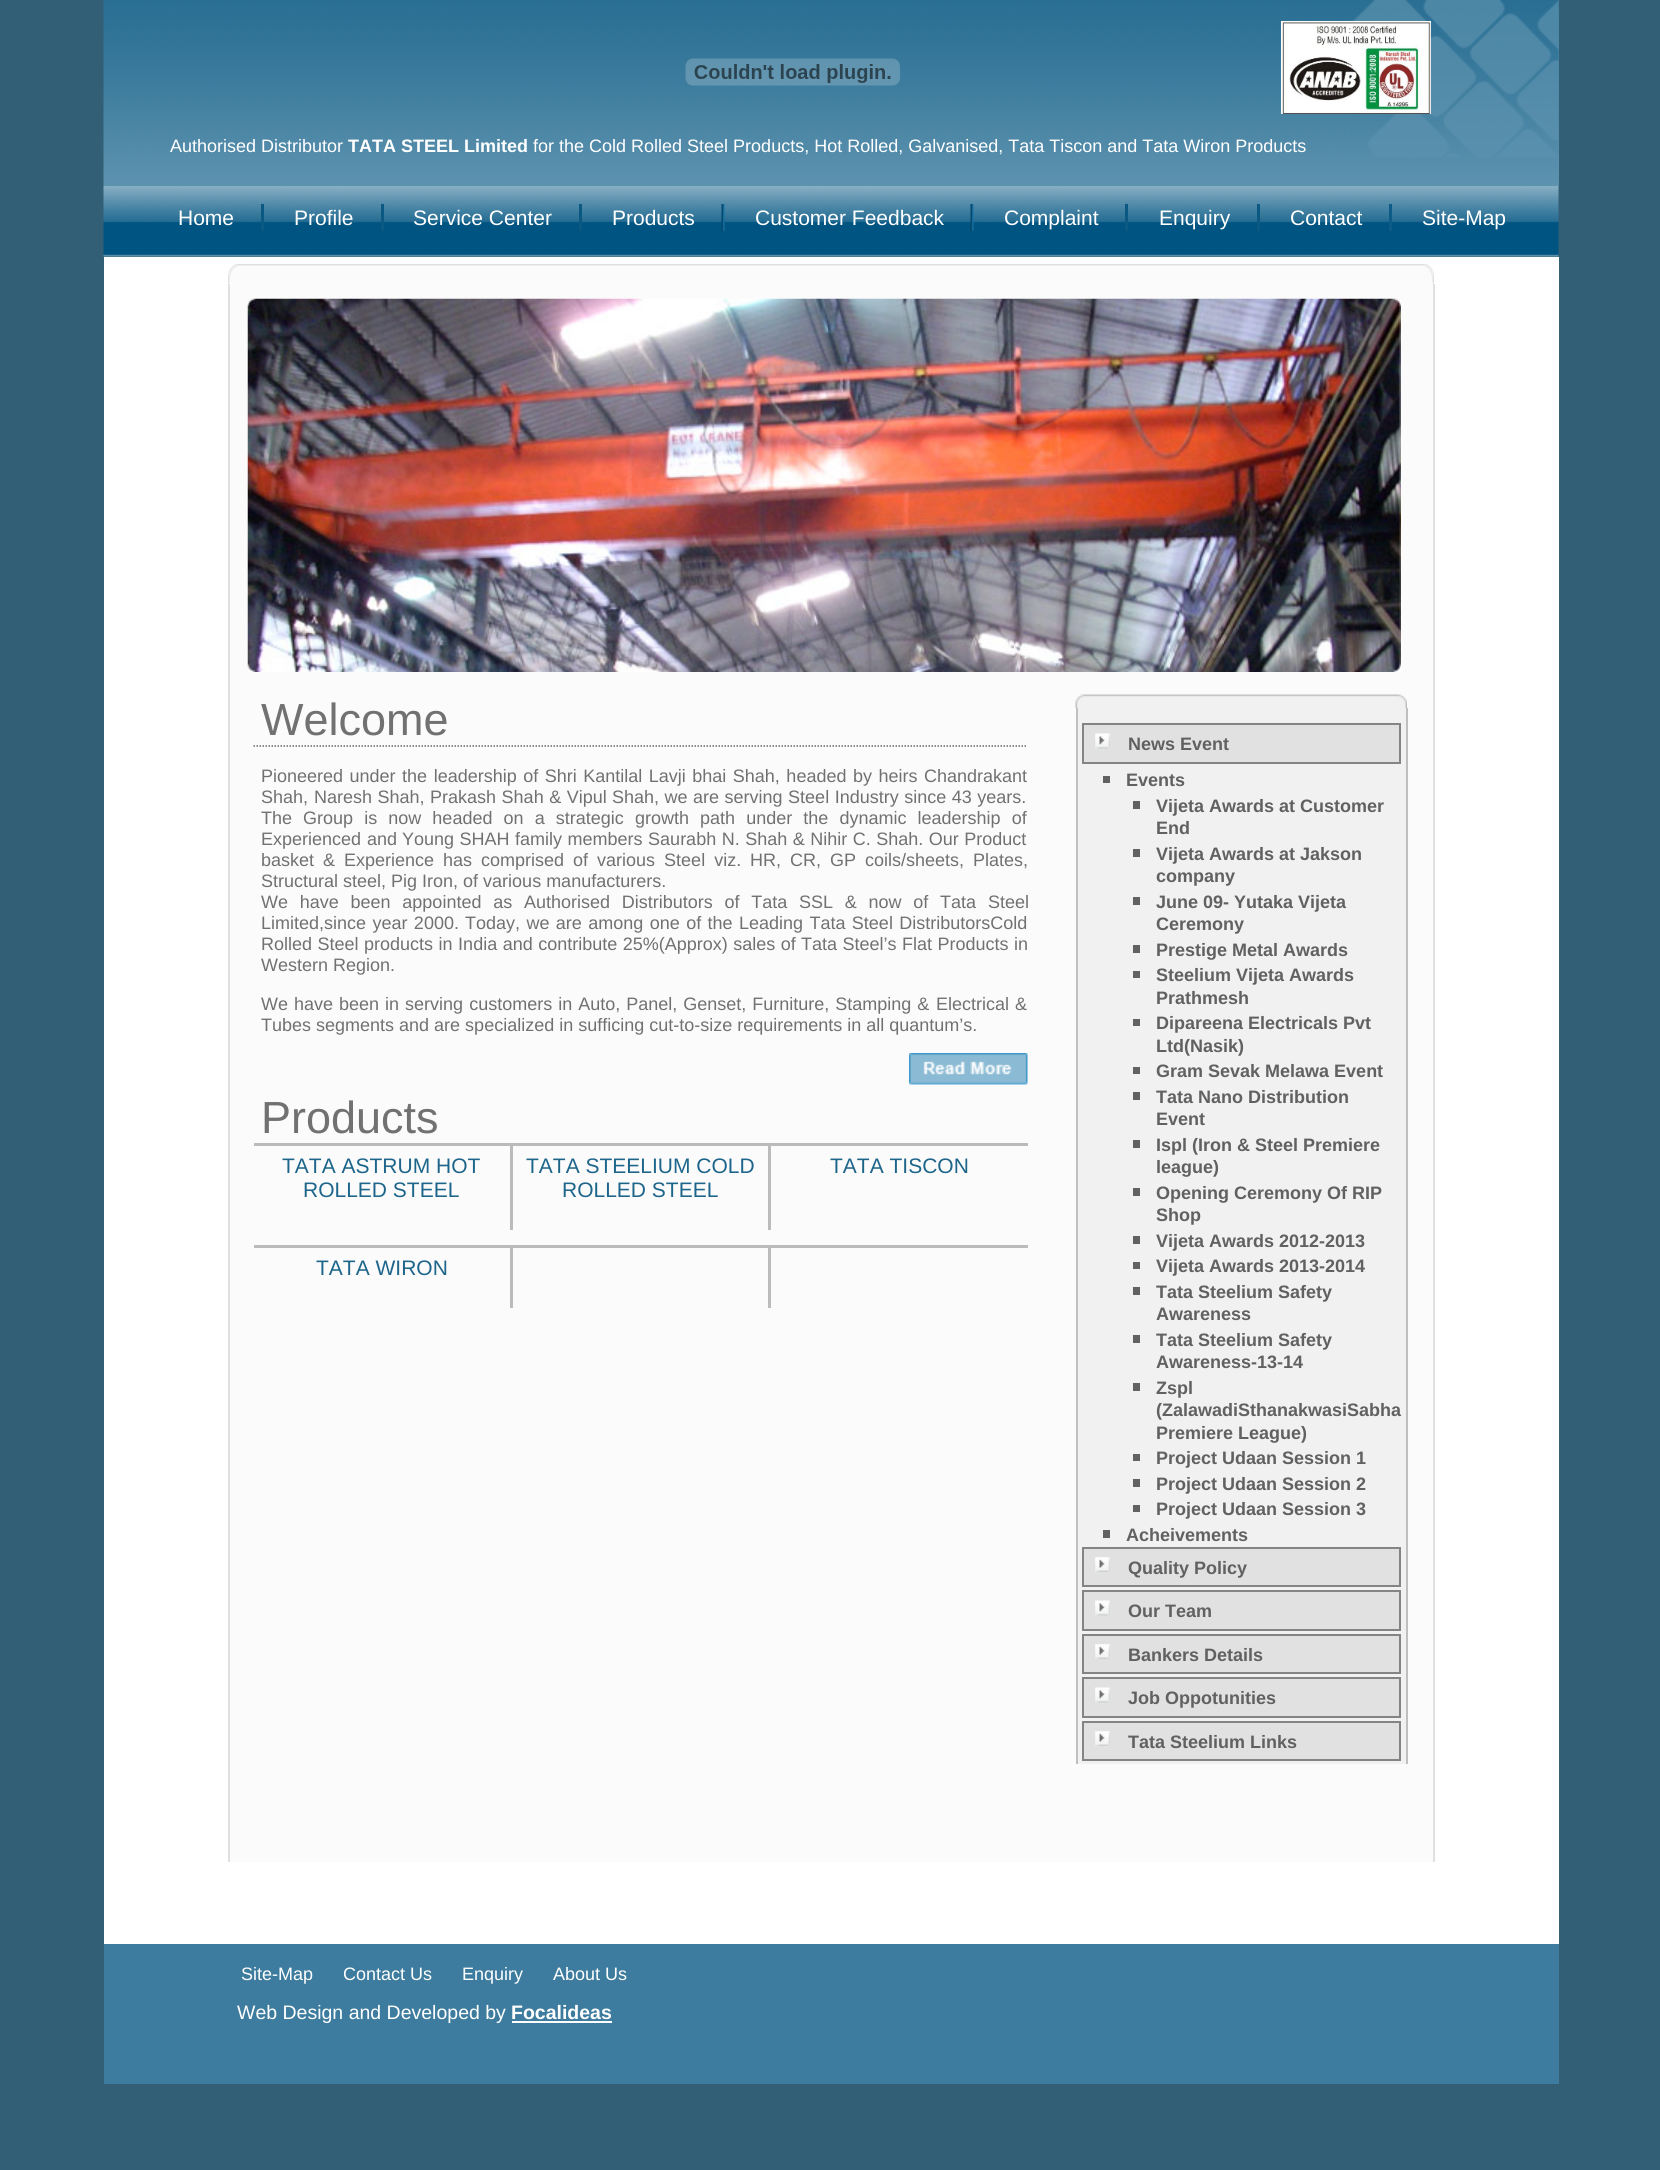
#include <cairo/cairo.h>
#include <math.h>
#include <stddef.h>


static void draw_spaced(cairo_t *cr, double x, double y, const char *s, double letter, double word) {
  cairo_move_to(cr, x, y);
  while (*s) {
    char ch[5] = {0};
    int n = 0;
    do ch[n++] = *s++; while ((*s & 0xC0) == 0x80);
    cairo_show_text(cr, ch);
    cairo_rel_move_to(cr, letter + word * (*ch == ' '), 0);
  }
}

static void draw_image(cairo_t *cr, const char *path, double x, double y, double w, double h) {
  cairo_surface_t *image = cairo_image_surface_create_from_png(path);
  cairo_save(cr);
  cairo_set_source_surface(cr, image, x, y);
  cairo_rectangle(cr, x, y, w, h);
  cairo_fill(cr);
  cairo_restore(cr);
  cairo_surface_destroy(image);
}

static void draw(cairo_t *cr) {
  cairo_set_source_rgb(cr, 50 / 255.0, 94 / 255.0, 118 / 255.0);
  cairo_paint(cr);
  cairo_set_source_rgb(cr, 93 / 255.0, 147 / 255.0, 174 / 255.0);
  cairo_rectangle(cr, 1558, 0, 1, 186);
  cairo_fill(cr);
  draw_image(cr, "images/1.png", 103, 0, 1456, 186);
  draw_image(cr, "images/2.png", 1350, 0, 209, 157);
  draw_image(cr, "images/3.png", 685, 58, 215, 28);
  draw_image(cr, "images/4.png", 1281, 21, 150, 93);
  draw_image(cr, "images/5.png", 103, 186, 1456, 71);
  cairo_set_source_rgb(cr, 11 / 255.0, 89 / 255.0, 131 / 255.0);
  cairo_rectangle(cr, 261, 204, 3, 27);
  cairo_fill(cr);
  cairo_rectangle(cr, 381, 204, 3, 27);
  cairo_fill(cr);
  cairo_rectangle(cr, 579, 204, 3, 27);
  cairo_fill(cr);
  draw_image(cr, "images/6.png", 721, 204, 4, 27);
  draw_image(cr, "images/7.png", 970, 204, 4, 27);
  cairo_rectangle(cr, 1125, 204, 3, 27);
  cairo_fill(cr);
  cairo_rectangle(cr, 1257, 204, 3, 27);
  cairo_fill(cr);
  cairo_set_source_rgb(cr, 13 / 255.0, 92 / 255.0, 135 / 255.0);
  cairo_rectangle(cr, 1389, 204, 3, 27);
  cairo_fill(cr);
  cairo_set_source_rgb(cr, 1, 1, 1);
  cairo_rectangle(cr, 104, 257, 1455, 1687);
  cairo_fill(cr);
  draw_image(cr, "images/8.png", 228, 264, 1206, 20);
  cairo_set_source_rgb(cr, 251 / 255.0, 251 / 255.0, 251 / 255.0);
  cairo_rectangle(cr, 230, 284, 1203, 1578);
  cairo_fill(cr);
  cairo_set_source_rgb(cr, 224 / 255.0, 224 / 255.0, 224 / 255.0);
  cairo_rectangle(cr, 1433, 284, 2, 1578);
  cairo_fill(cr);
  cairo_rectangle(cr, 228, 284, 2, 1578);
  cairo_fill(cr);
  draw_image(cr, "images/9.png", 247, 298, 1154, 374);
  cairo_new_path(cr);
  cairo_move_to(cr, 253.5, 746);
  cairo_line_to(cr, 1027.5, 746);
  cairo_set_source_rgb(cr, 102 / 255.0, 102 / 255.0, 102 / 255.0);
  cairo_set_line_width(cr, 1.5);
  cairo_set_dash(cr, (double[]){1.5, 1.5}, 2, 0);
  cairo_stroke(cr);
  draw_image(cr, "images/10.png", 909, 1053, 119, 32);
  cairo_set_source_rgb(cr, 187 / 255.0, 187 / 255.0, 187 / 255.0);
  cairo_rectangle(cr, 254, 1143, 774, 3);
  cairo_fill(cr);
  cairo_rectangle(cr, 510, 1146, 3, 84);
  cairo_fill(cr);
  cairo_rectangle(cr, 768, 1146, 3, 84);
  cairo_fill(cr);
  cairo_rectangle(cr, 254, 1245, 774, 3);
  cairo_fill(cr);
  cairo_rectangle(cr, 510, 1248, 3, 60);
  cairo_fill(cr);
  cairo_rectangle(cr, 768, 1248, 3, 60);
  cairo_fill(cr);
  draw_image(cr, "images/11.png", 1075, 694, 332, 14);
  cairo_set_source_rgb(cr, 241 / 255.0, 241 / 255.0, 241 / 255.0);
  cairo_rectangle(cr, 1078, 708, 328, 1056);
  cairo_fill(cr);
  cairo_set_source_rgb(cr, 191 / 255.0, 191 / 255.0, 191 / 255.0);
  cairo_rectangle(cr, 1406, 708, 2, 1056);
  cairo_fill(cr);
  cairo_rectangle(cr, 1076, 708, 2, 1056);
  cairo_fill(cr);
  cairo_set_source_rgb(cr, 225 / 255.0, 225 / 255.0, 225 / 255.0);
  cairo_rectangle(cr, 1084, 725, 315, 37);
  cairo_fill(cr);
  draw_image(cr, "images/12.png", 1095, 733, 15, 16);
  cairo_rectangle(cr, 1083, 724, 317, 39);
  cairo_set_source_rgb(cr, 132 / 255.0, 132 / 255.0, 132 / 255.0);
  cairo_set_line_width(cr, 2);
  cairo_set_dash(cr, NULL, 0, 0);
  cairo_stroke(cr);
  cairo_set_source_rgb(cr, 97 / 255.0, 97 / 255.0, 97 / 255.0);
  cairo_rectangle(cr, 1103, 776, 7, 7);
  cairo_fill(cr);
  cairo_rectangle(cr, 1133, 801, 7, 8);
  cairo_fill(cr);
  cairo_rectangle(cr, 1133, 849, 7, 8);
  cairo_fill(cr);
  cairo_rectangle(cr, 1133, 897, 7, 8);
  cairo_fill(cr);
  cairo_rectangle(cr, 1133, 945, 7, 8);
  cairo_fill(cr);
  cairo_rectangle(cr, 1133, 971, 7, 7);
  cairo_fill(cr);
  cairo_rectangle(cr, 1133, 1019, 7, 7);
  cairo_fill(cr);
  cairo_rectangle(cr, 1133, 1067, 7, 7);
  cairo_fill(cr);
  cairo_rectangle(cr, 1133, 1092, 7, 8);
  cairo_fill(cr);
  cairo_rectangle(cr, 1133, 1140, 7, 8);
  cairo_fill(cr);
  cairo_rectangle(cr, 1133, 1188, 7, 8);
  cairo_fill(cr);
  cairo_rectangle(cr, 1133, 1236, 7, 8);
  cairo_fill(cr);
  cairo_rectangle(cr, 1133, 1262, 7, 7);
  cairo_fill(cr);
  cairo_rectangle(cr, 1133, 1287, 7, 8);
  cairo_fill(cr);
  cairo_rectangle(cr, 1133, 1335, 7, 8);
  cairo_fill(cr);
  cairo_rectangle(cr, 1133, 1383, 7, 8);
  cairo_fill(cr);
  cairo_rectangle(cr, 1133, 1454, 7, 7);
  cairo_fill(cr);
  cairo_rectangle(cr, 1133, 1479, 7, 8);
  cairo_fill(cr);
  cairo_rectangle(cr, 1133, 1505, 7, 7);
  cairo_fill(cr);
  cairo_rectangle(cr, 1103, 1530, 7, 8);
  cairo_fill(cr);
  cairo_set_source_rgb(cr, 225 / 255.0, 225 / 255.0, 225 / 255.0);
  cairo_rectangle(cr, 1084, 1549, 315, 36);
  cairo_fill(cr);
  draw_image(cr, "images/13.png", 1095, 1557, 15, 15);
  cairo_rectangle(cr, 1083, 1548, 317, 38);
  cairo_set_source_rgb(cr, 132 / 255.0, 132 / 255.0, 132 / 255.0);
  cairo_stroke(cr);
  cairo_set_source_rgb(cr, 225 / 255.0, 225 / 255.0, 225 / 255.0);
  cairo_rectangle(cr, 1084, 1592, 315, 37);
  cairo_fill(cr);
  draw_image(cr, "images/12.png", 1095, 1600, 15, 16);
  cairo_rectangle(cr, 1083, 1591, 317, 39);
  cairo_set_source_rgb(cr, 132 / 255.0, 132 / 255.0, 132 / 255.0);
  cairo_stroke(cr);
  cairo_set_source_rgb(cr, 225 / 255.0, 225 / 255.0, 225 / 255.0);
  cairo_rectangle(cr, 1084, 1636, 315, 36);
  cairo_fill(cr);
  draw_image(cr, "images/13.png", 1095, 1644, 15, 15);
  cairo_rectangle(cr, 1083, 1635, 317, 38);
  cairo_set_source_rgb(cr, 132 / 255.0, 132 / 255.0, 132 / 255.0);
  cairo_stroke(cr);
  cairo_set_source_rgb(cr, 225 / 255.0, 225 / 255.0, 225 / 255.0);
  cairo_rectangle(cr, 1084, 1679, 315, 37);
  cairo_fill(cr);
  draw_image(cr, "images/12.png", 1095, 1687, 15, 16);
  cairo_rectangle(cr, 1083, 1678, 317, 39);
  cairo_set_source_rgb(cr, 132 / 255.0, 132 / 255.0, 132 / 255.0);
  cairo_stroke(cr);
  cairo_set_source_rgb(cr, 225 / 255.0, 225 / 255.0, 225 / 255.0);
  cairo_rectangle(cr, 1084, 1723, 315, 36);
  cairo_fill(cr);
  draw_image(cr, "images/13.png", 1095, 1731, 15, 15);
  cairo_rectangle(cr, 1083, 1722, 317, 38);
  cairo_set_source_rgb(cr, 132 / 255.0, 132 / 255.0, 132 / 255.0);
  cairo_stroke(cr);
  cairo_set_source_rgb(cr, 61 / 255.0, 124 / 255.0, 158 / 255.0);
  cairo_rectangle(cr, 104, 1944, 1455, 140);
  cairo_fill(cr);
  cairo_set_source_rgb(cr, 1, 1, 1);
  cairo_rectangle(cr, 512, 2021, 100, 2);
  cairo_fill(cr);
  cairo_select_font_face(cr, "Liberation Sans", CAIRO_FONT_SLANT_NORMAL, CAIRO_FONT_WEIGHT_NORMAL);
  cairo_set_font_size(cr, 18);
  cairo_move_to(cr, 170, 152);
  cairo_show_text(cr, "Authorised Distributor");
  cairo_select_font_face(cr, "Liberation Sans", CAIRO_FONT_SLANT_NORMAL, CAIRO_FONT_WEIGHT_BOLD);
  cairo_move_to(cr, 348, 152);
  cairo_show_text(cr, "TATA STEEL Limited");
  cairo_select_font_face(cr, "Liberation Sans", CAIRO_FONT_SLANT_NORMAL, CAIRO_FONT_WEIGHT_NORMAL);
  cairo_move_to(cr, 533, 152);
  cairo_show_text(cr, "for the Cold Rolled Steel Products, Hot Rolled, Galvanised, Tata Tiscon and Tata Wiron Products");
  cairo_set_font_size(cr, 21);
  cairo_move_to(cr, 178, 225);
  cairo_show_text(cr, "Home");
  cairo_move_to(cr, 294, 225);
  cairo_show_text(cr, "Profile");
  cairo_move_to(cr, 413, 225);
  cairo_show_text(cr, "Service Center");
  cairo_move_to(cr, 612, 225);
  cairo_show_text(cr, "Products");
  cairo_move_to(cr, 755, 225);
  cairo_show_text(cr, "Customer Feedback");
  cairo_move_to(cr, 1004, 225);
  cairo_show_text(cr, "Complaint");
  cairo_move_to(cr, 1159, 225);
  cairo_show_text(cr, "Enquiry");
  cairo_move_to(cr, 1290, 225);
  cairo_show_text(cr, "Contact");
  cairo_move_to(cr, 1422, 225);
  cairo_show_text(cr, "Site-Map");
  cairo_set_font_size(cr, 45);
  cairo_set_source_rgb(cr, 113 / 255.0, 113 / 255.0, 113 / 255.0);
  cairo_move_to(cr, 261, 735);
  cairo_show_text(cr, "Welcome");
  cairo_set_font_size(cr, 18);
  draw_spaced(cr, 261, 782, "Pioneered under the leadership of Shri Kantilal Lavji bhai Shah, headed by heirs Chandrakant", 0, 1.5);
  cairo_move_to(cr, 261, 803);
  cairo_show_text(cr, "Shah,");
  draw_spaced(cr, 314, 803, "Naresh Shah, Prakash Shah & Vipul", 0, 0.5);
  draw_spaced(cr, 612, 803, "Shah, we are serving Steel Industry since 43 years.", 0, 0.5);
  cairo_move_to(cr, 261, 824);
  cairo_show_text(cr, "The");
  draw_spaced(cr, 303, 824, "Group is now headed on a strategic growth path under the dynamic leadership of", 0, 6.1);
  draw_spaced(cr, 261, 845, "Experienced and", 0, 1);
  draw_spaced(cr, 402, 845, "Young SHAH family members Saurabh N. Shah & Nihir C. Shah. Our Product", 0, 0.5);
  draw_spaced(cr, 261, 866, "basket & Experience", 0, 4);
  draw_spaced(cr, 443, 866, "has comprised of various Steel viz.", 0, 4);
  draw_spaced(cr, 750, 866, "HR, CR, GP coils/sheets, Plates,", 0, 4);
  cairo_move_to(cr, 261, 887);
  cairo_show_text(cr, "Structural steel, Pig Iron, of various manufacturers.");
  draw_spaced(cr, 261, 908, "We have been appointed as Authorised Distributors of Tata SSL & now of Tata Steel", 0, 6.75);
  draw_spaced(cr, 261, 929, "Limited,since year 2000.", 0, 1.4);
  draw_spaced(cr, 465, 929, "Today, we are among one of the Leading Tata Steel DistributorsCold", 0, 1.4);
  draw_spaced(cr, 261, 950, "Rolled Steel products in India and contribute 25%(Approx) sales of", 0, 0.5);
  draw_spaced(cr, 801, 950, "Tata Steel’s Flat Products in", 0, 0.5);
  cairo_move_to(cr, 261, 971);
  cairo_show_text(cr, "Western Region.");
  draw_spaced(cr, 261, 1010, "We have been in serving customers in Auto, Panel, Genset, Furniture, Stamping &", 0, 1);
  draw_spaced(cr, 936, 1010, "Electrical &", 0, 1);
  cairo_move_to(cr, 261, 1031);
  cairo_show_text(cr, "Tubes segments and are specialized in sufficing cut-to-size requirements in all quantum’s.");
  cairo_set_font_size(cr, 45);
  cairo_move_to(cr, 261, 1133);
  cairo_show_text(cr, "Products");
  cairo_set_font_size(cr, 21);
  cairo_set_source_rgb(cr, 29 / 255.0, 101 / 255.0, 138 / 255.0);
  cairo_move_to(cr, 282, 1173);
  cairo_show_text(cr, "TATA ASTRUM HOT");
  cairo_move_to(cr, 303, 1197);
  cairo_show_text(cr, "ROLLED STEEL");
  cairo_move_to(cr, 526, 1173);
  cairo_show_text(cr, "TATA STEELIUM COLD");
  cairo_move_to(cr, 562, 1197);
  cairo_show_text(cr, "ROLLED STEEL");
  cairo_move_to(cr, 830, 1173);
  cairo_show_text(cr, "TATA TISCON");
  cairo_move_to(cr, 316, 1275);
  cairo_show_text(cr, "TATA WIRON");
  cairo_select_font_face(cr, "Liberation Sans", CAIRO_FONT_SLANT_NORMAL, CAIRO_FONT_WEIGHT_BOLD);
  cairo_set_font_size(cr, 18);
  cairo_set_source_rgb(cr, 97 / 255.0, 97 / 255.0, 97 / 255.0);
  cairo_move_to(cr, 1128, 750);
  cairo_show_text(cr, "News Event");
  cairo_move_to(cr, 1126, 786);
  cairo_show_text(cr, "Events");
  cairo_move_to(cr, 1156, 812);
  cairo_show_text(cr, "Vijeta Awards at Customer");
  cairo_move_to(cr, 1156, 834);
  cairo_show_text(cr, "End");
  cairo_move_to(cr, 1156, 860);
  cairo_show_text(cr, "Vijeta Awards at Jakson");
  cairo_move_to(cr, 1156, 882);
  cairo_show_text(cr, "company");
  cairo_move_to(cr, 1156, 908);
  cairo_show_text(cr, "June 09- Yutaka Vijeta");
  cairo_move_to(cr, 1156, 930);
  cairo_show_text(cr, "Ceremony");
  cairo_move_to(cr, 1156, 956);
  cairo_show_text(cr, "Prestige Metal Awards");
  cairo_move_to(cr, 1156, 981);
  cairo_show_text(cr, "Steelium Vijeta Awards");
  cairo_move_to(cr, 1156, 1004);
  cairo_show_text(cr, "Prathmesh");
  cairo_move_to(cr, 1156, 1029);
  cairo_show_text(cr, "Dipareena Electricals Pvt");
  cairo_move_to(cr, 1156, 1052);
  cairo_show_text(cr, "Ltd(Nasik)");
  cairo_move_to(cr, 1156, 1077);
  cairo_show_text(cr, "Gram Sevak Melawa Event");
  cairo_move_to(cr, 1156, 1103);
  cairo_show_text(cr, "Tata Nano Distribution");
  cairo_move_to(cr, 1156, 1125);
  cairo_show_text(cr, "Event");
  cairo_move_to(cr, 1156, 1151);
  cairo_show_text(cr, "Ispl (Iron & Steel Premiere");
  cairo_move_to(cr, 1156, 1173);
  cairo_show_text(cr, "league)");
  cairo_move_to(cr, 1156, 1199);
  cairo_show_text(cr, "Opening Ceremony Of RIP");
  cairo_move_to(cr, 1156, 1221);
  cairo_show_text(cr, "Shop");
  cairo_move_to(cr, 1156, 1247);
  cairo_show_text(cr, "Vijeta Awards 2012-2013");
  cairo_move_to(cr, 1156, 1272);
  cairo_show_text(cr, "Vijeta Awards 2013-2014");
  cairo_move_to(cr, 1156, 1298);
  cairo_show_text(cr, "Tata Steelium Safety");
  cairo_move_to(cr, 1156, 1320);
  cairo_show_text(cr, "Awareness");
  cairo_move_to(cr, 1156, 1346);
  cairo_show_text(cr, "Tata Steelium Safety");
  cairo_move_to(cr, 1156, 1368);
  cairo_show_text(cr, "Awareness-13-14");
  cairo_move_to(cr, 1156, 1394);
  cairo_show_text(cr, "Zspl");
  cairo_move_to(cr, 1156, 1416);
  cairo_show_text(cr, "(ZalawadiSthanakwasiSabha");
  cairo_move_to(cr, 1156, 1439);
  cairo_show_text(cr, "Premiere League)");
  cairo_move_to(cr, 1156, 1464);
  cairo_show_text(cr, "Project Udaan Session 1");
  cairo_move_to(cr, 1156, 1490);
  cairo_show_text(cr, "Project Udaan Session 2");
  cairo_move_to(cr, 1156, 1515);
  cairo_show_text(cr, "Project Udaan Session 3");
  cairo_move_to(cr, 1126, 1541);
  cairo_show_text(cr, "Acheivements");
  cairo_move_to(cr, 1128, 1574);
  cairo_show_text(cr, "Quality Policy");
  cairo_move_to(cr, 1128, 1617);
  cairo_show_text(cr, "Our Team");
  cairo_move_to(cr, 1128, 1661);
  cairo_show_text(cr, "Bankers Details");
  cairo_move_to(cr, 1128, 1704);
  cairo_show_text(cr, "Job Oppotunities");
  cairo_move_to(cr, 1128, 1748);
  cairo_show_text(cr, "Tata Steelium Links");
  cairo_select_font_face(cr, "Liberation Sans", CAIRO_FONT_SLANT_NORMAL, CAIRO_FONT_WEIGHT_NORMAL);
  cairo_set_source_rgb(cr, 1, 1, 1);
  cairo_move_to(cr, 241, 1980);
  cairo_show_text(cr, "Site-Map");
  cairo_move_to(cr, 343, 1980);
  cairo_show_text(cr, "Contact Us");
  cairo_move_to(cr, 462, 1980);
  cairo_show_text(cr, "Enquiry");
  cairo_move_to(cr, 553, 1980);
  cairo_show_text(cr, "About Us");
  cairo_set_font_size(cr, 19.5);
  cairo_move_to(cr, 237, 2019);
  cairo_show_text(cr, "Web Design and Developed by");
  cairo_select_font_face(cr, "Liberation Sans", CAIRO_FONT_SLANT_NORMAL, CAIRO_FONT_WEIGHT_BOLD);
  cairo_move_to(cr, 511, 2019);
  cairo_show_text(cr, "Focalideas");
}

int main(void) {
  cairo_surface_t *surface = cairo_image_surface_create(CAIRO_FORMAT_RGB24, 1660, 2170);
  cairo_t *cr = cairo_create(surface);
  cairo_font_options_t *options = cairo_font_options_create();
  cairo_font_options_set_hint_metrics(options, CAIRO_HINT_METRICS_OFF);
  cairo_font_options_set_hint_style(options, CAIRO_HINT_STYLE_NONE);
  cairo_set_font_options(cr, options);
  cairo_set_miter_limit(cr, 4);
  draw(cr);
  cairo_surface_write_to_png(surface, "out.png");
  cairo_font_options_destroy(options);
  cairo_destroy(cr);
  cairo_surface_destroy(surface);
  return 0;
}
